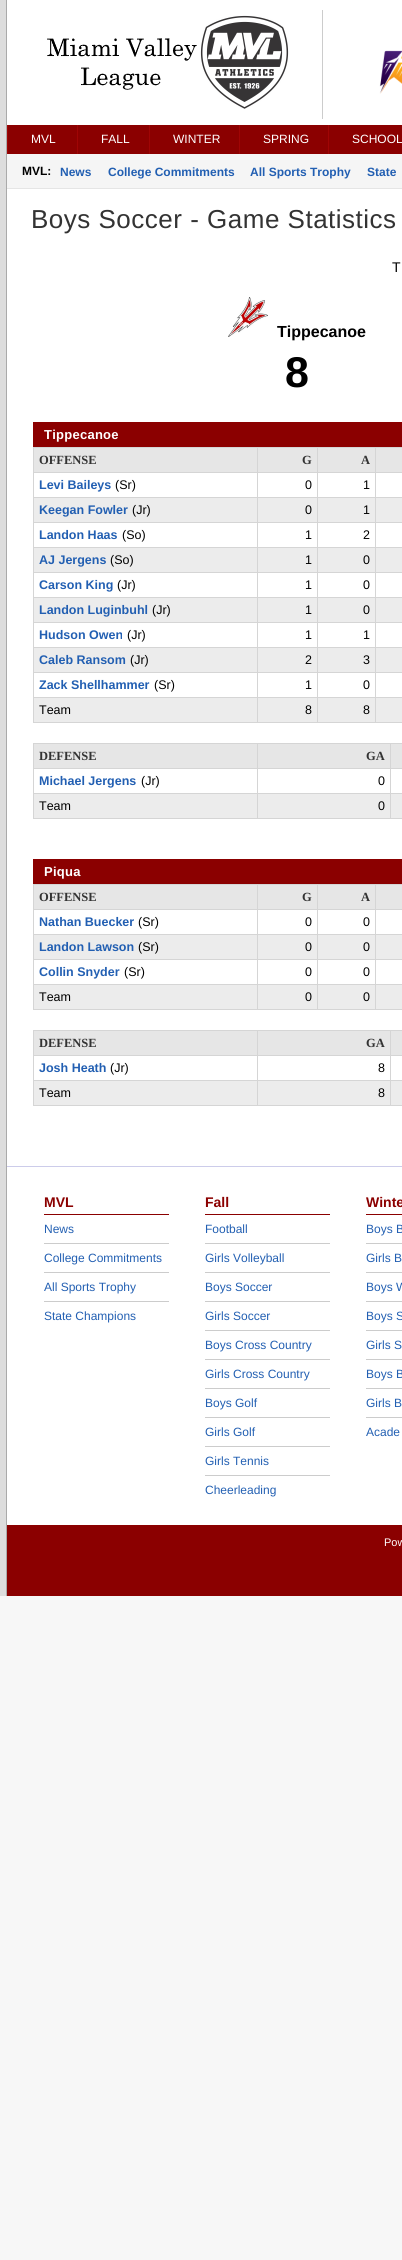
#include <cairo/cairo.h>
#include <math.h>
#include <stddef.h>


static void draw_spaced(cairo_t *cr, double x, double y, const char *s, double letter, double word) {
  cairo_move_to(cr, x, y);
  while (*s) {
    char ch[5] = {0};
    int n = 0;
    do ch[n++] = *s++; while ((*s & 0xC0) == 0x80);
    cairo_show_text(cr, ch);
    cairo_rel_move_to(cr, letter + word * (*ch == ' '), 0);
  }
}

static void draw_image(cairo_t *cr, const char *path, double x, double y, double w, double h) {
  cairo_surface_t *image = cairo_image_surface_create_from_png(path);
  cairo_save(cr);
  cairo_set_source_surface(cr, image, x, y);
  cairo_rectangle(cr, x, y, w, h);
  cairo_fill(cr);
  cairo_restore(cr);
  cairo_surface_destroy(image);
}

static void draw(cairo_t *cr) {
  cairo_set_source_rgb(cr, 247 / 255.0, 247 / 255.0, 247 / 255.0);
  cairo_paint(cr);
  cairo_set_source_rgb(cr, 221 / 255.0, 221 / 255.0, 221 / 255.0);
  cairo_rectangle(cr, 0, 0, 6, 1596);
  cairo_fill(cr);
  cairo_set_source_rgb(cr, 1, 1, 1);
  cairo_rectangle(cr, 7, 0, 395, 1525);
  cairo_fill(cr);
  cairo_set_source_rgb(cr, 170 / 255.0, 170 / 255.0, 170 / 255.0);
  cairo_rectangle(cr, 6, 0, 1, 1596);
  cairo_fill(cr);
  draw_image(cr, "images/1.png", 47, 15, 242, 94);
  cairo_set_source_rgb(cr, 204 / 255.0, 204 / 255.0, 204 / 255.0);
  cairo_rectangle(cr, 322, 10, 1, 109);
  cairo_fill(cr);
  draw_image(cr, "images/2.png", 379, 50, 23, 44);
  cairo_set_source_rgb(cr, 139 / 255.0, 0, 0);
  cairo_rectangle(cr, 8, 125, 394, 29);
  cairo_fill(cr);
  cairo_set_source_rgb(cr, 160 / 255.0, 5 / 255.0, 5 / 255.0);
  cairo_rectangle(cr, 7, 125, 1, 30);
  cairo_fill(cr);
  cairo_rectangle(cr, 77, 125, 1, 30);
  cairo_fill(cr);
  cairo_rectangle(cr, 149, 125, 1, 30);
  cairo_fill(cr);
  cairo_rectangle(cr, 239, 125, 1, 30);
  cairo_fill(cr);
  cairo_rectangle(cr, 328, 125, 1, 30);
  cairo_fill(cr);
  cairo_set_source_rgb(cr, 245 / 255.0, 245 / 255.0, 245 / 255.0);
  cairo_rectangle(cr, 7, 154, 395, 34);
  cairo_fill(cr);
  cairo_set_source_rgb(cr, 229 / 255.0, 229 / 255.0, 229 / 255.0);
  cairo_rectangle(cr, 7, 188, 395, 1);
  cairo_fill(cr);
  draw_image(cr, "images/3.png", 228, 297, 40, 40);
  cairo_set_source_rgb(cr, 213 / 255.0, 213 / 255.0, 213 / 255.0);
  cairo_rectangle(cr, 33, 722, 369, 1);
  cairo_fill(cr);
  cairo_set_source_rgb(cr, 139 / 255.0, 0, 0);
  cairo_rectangle(cr, 34, 422, 368, 25);
  cairo_fill(cr);
  cairo_rectangle(cr, 33, 422, 1, 26);
  cairo_fill(cr);
  cairo_set_source_rgb(cr, 230 / 255.0, 230 / 255.0, 230 / 255.0);
  cairo_rectangle(cr, 34, 448, 223, 24);
  cairo_fill(cr);
  cairo_set_source_rgb(cr, 213 / 255.0, 213 / 255.0, 213 / 255.0);
  cairo_rectangle(cr, 375, 447, 27, 1);
  cairo_fill(cr);
  cairo_rectangle(cr, 375, 472, 27, 1);
  cairo_fill(cr);
  cairo_rectangle(cr, 375, 497, 27, 1);
  cairo_fill(cr);
  cairo_set_source_rgb(cr, 236 / 255.0, 236 / 255.0, 236 / 255.0);
  cairo_rectangle(cr, 34, 498, 368, 24);
  cairo_fill(cr);
  cairo_set_source_rgb(cr, 213 / 255.0, 213 / 255.0, 213 / 255.0);
  cairo_rectangle(cr, 375, 522, 27, 1);
  cairo_fill(cr);
  cairo_rectangle(cr, 375, 547, 27, 1);
  cairo_fill(cr);
  cairo_set_source_rgb(cr, 236 / 255.0, 236 / 255.0, 236 / 255.0);
  cairo_rectangle(cr, 34, 548, 368, 24);
  cairo_fill(cr);
  cairo_set_source_rgb(cr, 213 / 255.0, 213 / 255.0, 213 / 255.0);
  cairo_rectangle(cr, 375, 572, 27, 1);
  cairo_fill(cr);
  cairo_rectangle(cr, 375, 597, 27, 1);
  cairo_fill(cr);
  cairo_set_source_rgb(cr, 236 / 255.0, 236 / 255.0, 236 / 255.0);
  cairo_rectangle(cr, 34, 598, 368, 24);
  cairo_fill(cr);
  cairo_set_source_rgb(cr, 213 / 255.0, 213 / 255.0, 213 / 255.0);
  cairo_rectangle(cr, 375, 622, 27, 1);
  cairo_fill(cr);
  cairo_rectangle(cr, 375, 647, 27, 1);
  cairo_fill(cr);
  cairo_set_source_rgb(cr, 236 / 255.0, 236 / 255.0, 236 / 255.0);
  cairo_rectangle(cr, 34, 648, 368, 24);
  cairo_fill(cr);
  cairo_set_source_rgb(cr, 213 / 255.0, 213 / 255.0, 213 / 255.0);
  cairo_rectangle(cr, 375, 672, 27, 1);
  cairo_fill(cr);
  cairo_rectangle(cr, 375, 697, 27, 1);
  cairo_fill(cr);
  cairo_set_source_rgb(cr, 236 / 255.0, 236 / 255.0, 236 / 255.0);
  cairo_rectangle(cr, 34, 698, 368, 24);
  cairo_fill(cr);
  cairo_set_source_rgb(cr, 213 / 255.0, 213 / 255.0, 213 / 255.0);
  cairo_rectangle(cr, 375, 697, 1, 26);
  cairo_fill(cr);
  cairo_rectangle(cr, 317, 697, 59, 1);
  cairo_fill(cr);
  cairo_rectangle(cr, 375, 672, 1, 26);
  cairo_fill(cr);
  cairo_rectangle(cr, 317, 672, 59, 1);
  cairo_fill(cr);
  cairo_rectangle(cr, 375, 647, 1, 26);
  cairo_fill(cr);
  cairo_rectangle(cr, 317, 647, 59, 1);
  cairo_fill(cr);
  cairo_rectangle(cr, 375, 622, 1, 26);
  cairo_fill(cr);
  cairo_rectangle(cr, 317, 622, 59, 1);
  cairo_fill(cr);
  cairo_rectangle(cr, 375, 597, 1, 26);
  cairo_fill(cr);
  cairo_rectangle(cr, 317, 597, 59, 1);
  cairo_fill(cr);
  cairo_rectangle(cr, 375, 572, 1, 26);
  cairo_fill(cr);
  cairo_rectangle(cr, 317, 572, 59, 1);
  cairo_fill(cr);
  cairo_rectangle(cr, 375, 547, 1, 26);
  cairo_fill(cr);
  cairo_rectangle(cr, 317, 547, 59, 1);
  cairo_fill(cr);
  cairo_rectangle(cr, 375, 522, 1, 26);
  cairo_fill(cr);
  cairo_rectangle(cr, 317, 522, 59, 1);
  cairo_fill(cr);
  cairo_rectangle(cr, 375, 497, 1, 26);
  cairo_fill(cr);
  cairo_rectangle(cr, 317, 497, 59, 1);
  cairo_fill(cr);
  cairo_rectangle(cr, 375, 472, 1, 26);
  cairo_fill(cr);
  cairo_rectangle(cr, 317, 472, 59, 1);
  cairo_fill(cr);
  cairo_rectangle(cr, 375, 447, 1, 26);
  cairo_fill(cr);
  cairo_rectangle(cr, 317, 447, 59, 1);
  cairo_fill(cr);
  cairo_rectangle(cr, 317, 697, 1, 26);
  cairo_fill(cr);
  cairo_rectangle(cr, 257, 697, 61, 1);
  cairo_fill(cr);
  cairo_rectangle(cr, 317, 672, 1, 26);
  cairo_fill(cr);
  cairo_rectangle(cr, 257, 672, 61, 1);
  cairo_fill(cr);
  cairo_rectangle(cr, 317, 647, 1, 26);
  cairo_fill(cr);
  cairo_rectangle(cr, 257, 647, 61, 1);
  cairo_fill(cr);
  cairo_rectangle(cr, 317, 622, 1, 26);
  cairo_fill(cr);
  cairo_rectangle(cr, 257, 622, 61, 1);
  cairo_fill(cr);
  cairo_rectangle(cr, 317, 597, 1, 26);
  cairo_fill(cr);
  cairo_rectangle(cr, 257, 597, 61, 1);
  cairo_fill(cr);
  cairo_rectangle(cr, 317, 572, 1, 26);
  cairo_fill(cr);
  cairo_rectangle(cr, 257, 572, 61, 1);
  cairo_fill(cr);
  cairo_rectangle(cr, 317, 547, 1, 26);
  cairo_fill(cr);
  cairo_rectangle(cr, 257, 547, 61, 1);
  cairo_fill(cr);
  cairo_rectangle(cr, 317, 522, 1, 26);
  cairo_fill(cr);
  cairo_rectangle(cr, 257, 522, 61, 1);
  cairo_fill(cr);
  cairo_rectangle(cr, 317, 497, 1, 26);
  cairo_fill(cr);
  cairo_rectangle(cr, 257, 497, 61, 1);
  cairo_fill(cr);
  cairo_rectangle(cr, 317, 472, 1, 26);
  cairo_fill(cr);
  cairo_rectangle(cr, 257, 472, 61, 1);
  cairo_fill(cr);
  cairo_rectangle(cr, 317, 447, 1, 26);
  cairo_fill(cr);
  cairo_rectangle(cr, 257, 447, 61, 1);
  cairo_fill(cr);
  cairo_rectangle(cr, 257, 697, 1, 26);
  cairo_fill(cr);
  cairo_rectangle(cr, 33, 697, 225, 1);
  cairo_fill(cr);
  cairo_rectangle(cr, 257, 672, 1, 26);
  cairo_fill(cr);
  cairo_rectangle(cr, 33, 672, 225, 1);
  cairo_fill(cr);
  cairo_rectangle(cr, 257, 647, 1, 26);
  cairo_fill(cr);
  cairo_rectangle(cr, 33, 647, 225, 1);
  cairo_fill(cr);
  cairo_rectangle(cr, 257, 622, 1, 26);
  cairo_fill(cr);
  cairo_rectangle(cr, 33, 622, 225, 1);
  cairo_fill(cr);
  cairo_rectangle(cr, 257, 597, 1, 26);
  cairo_fill(cr);
  cairo_rectangle(cr, 33, 597, 225, 1);
  cairo_fill(cr);
  cairo_rectangle(cr, 257, 572, 1, 26);
  cairo_fill(cr);
  cairo_rectangle(cr, 33, 572, 225, 1);
  cairo_fill(cr);
  cairo_rectangle(cr, 257, 547, 1, 26);
  cairo_fill(cr);
  cairo_rectangle(cr, 33, 547, 225, 1);
  cairo_fill(cr);
  cairo_rectangle(cr, 257, 522, 1, 26);
  cairo_fill(cr);
  cairo_rectangle(cr, 33, 522, 225, 1);
  cairo_fill(cr);
  cairo_rectangle(cr, 257, 497, 1, 26);
  cairo_fill(cr);
  cairo_rectangle(cr, 33, 497, 225, 1);
  cairo_fill(cr);
  cairo_rectangle(cr, 257, 472, 1, 26);
  cairo_fill(cr);
  cairo_rectangle(cr, 33, 472, 225, 1);
  cairo_fill(cr);
  cairo_rectangle(cr, 257, 447, 1, 26);
  cairo_fill(cr);
  cairo_rectangle(cr, 33, 447, 225, 1);
  cairo_fill(cr);
  cairo_rectangle(cr, 33, 697, 1, 26);
  cairo_fill(cr);
  cairo_rectangle(cr, 33, 672, 1, 26);
  cairo_fill(cr);
  cairo_rectangle(cr, 33, 647, 1, 26);
  cairo_fill(cr);
  cairo_rectangle(cr, 33, 622, 1, 26);
  cairo_fill(cr);
  cairo_rectangle(cr, 33, 597, 1, 26);
  cairo_fill(cr);
  cairo_rectangle(cr, 33, 572, 1, 26);
  cairo_fill(cr);
  cairo_rectangle(cr, 33, 547, 1, 26);
  cairo_fill(cr);
  cairo_rectangle(cr, 33, 522, 1, 26);
  cairo_fill(cr);
  cairo_rectangle(cr, 33, 497, 1, 26);
  cairo_fill(cr);
  cairo_rectangle(cr, 33, 472, 1, 26);
  cairo_fill(cr);
  cairo_rectangle(cr, 33, 447, 1, 26);
  cairo_fill(cr);
  cairo_set_source_rgb(cr, 230 / 255.0, 230 / 255.0, 230 / 255.0);
  cairo_rectangle(cr, 258, 448, 59, 24);
  cairo_fill(cr);
  cairo_rectangle(cr, 318, 448, 57, 24);
  cairo_fill(cr);
  cairo_rectangle(cr, 376, 448, 26, 24);
  cairo_fill(cr);
  cairo_set_source_rgb(cr, 213 / 255.0, 213 / 255.0, 213 / 255.0);
  cairo_rectangle(cr, 33, 818, 369, 1);
  cairo_fill(cr);
  cairo_set_source_rgb(cr, 230 / 255.0, 230 / 255.0, 230 / 255.0);
  cairo_rectangle(cr, 34, 744, 223, 24);
  cairo_fill(cr);
  cairo_set_source_rgb(cr, 213 / 255.0, 213 / 255.0, 213 / 255.0);
  cairo_rectangle(cr, 390, 743, 12, 1);
  cairo_fill(cr);
  cairo_rectangle(cr, 390, 768, 12, 1);
  cairo_fill(cr);
  cairo_rectangle(cr, 390, 793, 12, 1);
  cairo_fill(cr);
  cairo_set_source_rgb(cr, 236 / 255.0, 236 / 255.0, 236 / 255.0);
  cairo_rectangle(cr, 34, 794, 368, 24);
  cairo_fill(cr);
  cairo_set_source_rgb(cr, 213 / 255.0, 213 / 255.0, 213 / 255.0);
  cairo_rectangle(cr, 390, 793, 1, 26);
  cairo_fill(cr);
  cairo_rectangle(cr, 257, 793, 134, 1);
  cairo_fill(cr);
  cairo_rectangle(cr, 390, 768, 1, 26);
  cairo_fill(cr);
  cairo_rectangle(cr, 257, 768, 134, 1);
  cairo_fill(cr);
  cairo_rectangle(cr, 390, 743, 1, 26);
  cairo_fill(cr);
  cairo_rectangle(cr, 257, 743, 134, 1);
  cairo_fill(cr);
  cairo_rectangle(cr, 257, 793, 1, 26);
  cairo_fill(cr);
  cairo_rectangle(cr, 33, 793, 225, 1);
  cairo_fill(cr);
  cairo_rectangle(cr, 257, 768, 1, 26);
  cairo_fill(cr);
  cairo_rectangle(cr, 33, 768, 225, 1);
  cairo_fill(cr);
  cairo_rectangle(cr, 257, 743, 1, 26);
  cairo_fill(cr);
  cairo_rectangle(cr, 33, 743, 225, 1);
  cairo_fill(cr);
  cairo_rectangle(cr, 33, 793, 1, 26);
  cairo_fill(cr);
  cairo_rectangle(cr, 33, 768, 1, 26);
  cairo_fill(cr);
  cairo_rectangle(cr, 33, 743, 1, 26);
  cairo_fill(cr);
  cairo_set_source_rgb(cr, 230 / 255.0, 230 / 255.0, 230 / 255.0);
  cairo_rectangle(cr, 258, 744, 132, 24);
  cairo_fill(cr);
  cairo_rectangle(cr, 391, 744, 11, 24);
  cairo_fill(cr);
  cairo_set_source_rgb(cr, 213 / 255.0, 213 / 255.0, 213 / 255.0);
  cairo_rectangle(cr, 33, 1009, 369, 1);
  cairo_fill(cr);
  cairo_set_source_rgb(cr, 139 / 255.0, 0, 0);
  cairo_rectangle(cr, 34, 859, 368, 25);
  cairo_fill(cr);
  cairo_rectangle(cr, 33, 859, 1, 26);
  cairo_fill(cr);
  cairo_set_source_rgb(cr, 230 / 255.0, 230 / 255.0, 230 / 255.0);
  cairo_rectangle(cr, 34, 885, 223, 24);
  cairo_fill(cr);
  cairo_set_source_rgb(cr, 213 / 255.0, 213 / 255.0, 213 / 255.0);
  cairo_rectangle(cr, 375, 884, 27, 1);
  cairo_fill(cr);
  cairo_rectangle(cr, 375, 909, 27, 1);
  cairo_fill(cr);
  cairo_rectangle(cr, 375, 934, 27, 1);
  cairo_fill(cr);
  cairo_set_source_rgb(cr, 236 / 255.0, 236 / 255.0, 236 / 255.0);
  cairo_rectangle(cr, 34, 935, 368, 24);
  cairo_fill(cr);
  cairo_set_source_rgb(cr, 213 / 255.0, 213 / 255.0, 213 / 255.0);
  cairo_rectangle(cr, 375, 959, 27, 1);
  cairo_fill(cr);
  cairo_rectangle(cr, 375, 984, 27, 1);
  cairo_fill(cr);
  cairo_set_source_rgb(cr, 236 / 255.0, 236 / 255.0, 236 / 255.0);
  cairo_rectangle(cr, 34, 985, 368, 24);
  cairo_fill(cr);
  cairo_set_source_rgb(cr, 213 / 255.0, 213 / 255.0, 213 / 255.0);
  cairo_rectangle(cr, 375, 984, 1, 26);
  cairo_fill(cr);
  cairo_rectangle(cr, 317, 984, 59, 1);
  cairo_fill(cr);
  cairo_rectangle(cr, 375, 959, 1, 26);
  cairo_fill(cr);
  cairo_rectangle(cr, 317, 959, 59, 1);
  cairo_fill(cr);
  cairo_rectangle(cr, 375, 934, 1, 26);
  cairo_fill(cr);
  cairo_rectangle(cr, 317, 934, 59, 1);
  cairo_fill(cr);
  cairo_rectangle(cr, 375, 909, 1, 26);
  cairo_fill(cr);
  cairo_rectangle(cr, 317, 909, 59, 1);
  cairo_fill(cr);
  cairo_rectangle(cr, 375, 884, 1, 26);
  cairo_fill(cr);
  cairo_rectangle(cr, 317, 884, 59, 1);
  cairo_fill(cr);
  cairo_rectangle(cr, 317, 984, 1, 26);
  cairo_fill(cr);
  cairo_rectangle(cr, 257, 984, 61, 1);
  cairo_fill(cr);
  cairo_rectangle(cr, 317, 959, 1, 26);
  cairo_fill(cr);
  cairo_rectangle(cr, 257, 959, 61, 1);
  cairo_fill(cr);
  cairo_rectangle(cr, 317, 934, 1, 26);
  cairo_fill(cr);
  cairo_rectangle(cr, 257, 934, 61, 1);
  cairo_fill(cr);
  cairo_rectangle(cr, 317, 909, 1, 26);
  cairo_fill(cr);
  cairo_rectangle(cr, 257, 909, 61, 1);
  cairo_fill(cr);
  cairo_rectangle(cr, 317, 884, 1, 26);
  cairo_fill(cr);
  cairo_rectangle(cr, 257, 884, 61, 1);
  cairo_fill(cr);
  cairo_rectangle(cr, 257, 984, 1, 26);
  cairo_fill(cr);
  cairo_rectangle(cr, 33, 984, 225, 1);
  cairo_fill(cr);
  cairo_rectangle(cr, 257, 959, 1, 26);
  cairo_fill(cr);
  cairo_rectangle(cr, 33, 959, 225, 1);
  cairo_fill(cr);
  cairo_rectangle(cr, 257, 934, 1, 26);
  cairo_fill(cr);
  cairo_rectangle(cr, 33, 934, 225, 1);
  cairo_fill(cr);
  cairo_rectangle(cr, 257, 909, 1, 26);
  cairo_fill(cr);
  cairo_rectangle(cr, 33, 909, 225, 1);
  cairo_fill(cr);
  cairo_rectangle(cr, 257, 884, 1, 26);
  cairo_fill(cr);
  cairo_rectangle(cr, 33, 884, 225, 1);
  cairo_fill(cr);
  cairo_rectangle(cr, 33, 984, 1, 26);
  cairo_fill(cr);
  cairo_rectangle(cr, 33, 959, 1, 26);
  cairo_fill(cr);
  cairo_rectangle(cr, 33, 934, 1, 26);
  cairo_fill(cr);
  cairo_rectangle(cr, 33, 909, 1, 26);
  cairo_fill(cr);
  cairo_rectangle(cr, 33, 884, 1, 26);
  cairo_fill(cr);
  cairo_set_source_rgb(cr, 230 / 255.0, 230 / 255.0, 230 / 255.0);
  cairo_rectangle(cr, 258, 885, 59, 24);
  cairo_fill(cr);
  cairo_rectangle(cr, 318, 885, 57, 24);
  cairo_fill(cr);
  cairo_rectangle(cr, 376, 885, 26, 24);
  cairo_fill(cr);
  cairo_set_source_rgb(cr, 213 / 255.0, 213 / 255.0, 213 / 255.0);
  cairo_rectangle(cr, 33, 1105, 369, 1);
  cairo_fill(cr);
  cairo_set_source_rgb(cr, 230 / 255.0, 230 / 255.0, 230 / 255.0);
  cairo_rectangle(cr, 34, 1031, 223, 24);
  cairo_fill(cr);
  cairo_set_source_rgb(cr, 213 / 255.0, 213 / 255.0, 213 / 255.0);
  cairo_rectangle(cr, 390, 1030, 12, 1);
  cairo_fill(cr);
  cairo_rectangle(cr, 390, 1055, 12, 1);
  cairo_fill(cr);
  cairo_rectangle(cr, 390, 1080, 12, 1);
  cairo_fill(cr);
  cairo_set_source_rgb(cr, 236 / 255.0, 236 / 255.0, 236 / 255.0);
  cairo_rectangle(cr, 34, 1081, 368, 24);
  cairo_fill(cr);
  cairo_set_source_rgb(cr, 213 / 255.0, 213 / 255.0, 213 / 255.0);
  cairo_rectangle(cr, 390, 1080, 1, 26);
  cairo_fill(cr);
  cairo_rectangle(cr, 257, 1080, 134, 1);
  cairo_fill(cr);
  cairo_rectangle(cr, 390, 1055, 1, 26);
  cairo_fill(cr);
  cairo_rectangle(cr, 257, 1055, 134, 1);
  cairo_fill(cr);
  cairo_rectangle(cr, 390, 1030, 1, 26);
  cairo_fill(cr);
  cairo_rectangle(cr, 257, 1030, 134, 1);
  cairo_fill(cr);
  cairo_rectangle(cr, 257, 1080, 1, 26);
  cairo_fill(cr);
  cairo_rectangle(cr, 33, 1080, 225, 1);
  cairo_fill(cr);
  cairo_rectangle(cr, 257, 1055, 1, 26);
  cairo_fill(cr);
  cairo_rectangle(cr, 33, 1055, 225, 1);
  cairo_fill(cr);
  cairo_rectangle(cr, 257, 1030, 1, 26);
  cairo_fill(cr);
  cairo_rectangle(cr, 33, 1030, 225, 1);
  cairo_fill(cr);
  cairo_rectangle(cr, 33, 1080, 1, 26);
  cairo_fill(cr);
  cairo_rectangle(cr, 33, 1055, 1, 26);
  cairo_fill(cr);
  cairo_rectangle(cr, 33, 1030, 1, 26);
  cairo_fill(cr);
  cairo_set_source_rgb(cr, 230 / 255.0, 230 / 255.0, 230 / 255.0);
  cairo_rectangle(cr, 258, 1031, 132, 24);
  cairo_fill(cr);
  cairo_rectangle(cr, 391, 1031, 11, 24);
  cairo_fill(cr);
  cairo_set_source_rgb(cr, 204 / 255.0, 204 / 255.0, 234 / 255.0);
  cairo_rectangle(cr, 7, 1166, 395, 1);
  cairo_fill(cr);
  cairo_set_source_rgb(cr, 139 / 255.0, 0, 0);
  cairo_rectangle(cr, 44, 1214, 125, 1);
  cairo_fill(cr);
  cairo_set_source_rgb(cr, 204 / 255.0, 204 / 255.0, 204 / 255.0);
  cairo_rectangle(cr, 44, 1243, 125, 1);
  cairo_fill(cr);
  cairo_rectangle(cr, 44, 1272, 125, 1);
  cairo_fill(cr);
  cairo_rectangle(cr, 44, 1301, 125, 1);
  cairo_fill(cr);
  cairo_set_source_rgb(cr, 139 / 255.0, 0, 0);
  cairo_rectangle(cr, 205, 1214, 125, 1);
  cairo_fill(cr);
  cairo_set_source_rgb(cr, 204 / 255.0, 204 / 255.0, 204 / 255.0);
  cairo_rectangle(cr, 205, 1243, 125, 1);
  cairo_fill(cr);
  cairo_rectangle(cr, 205, 1272, 125, 1);
  cairo_fill(cr);
  cairo_rectangle(cr, 205, 1301, 125, 1);
  cairo_fill(cr);
  cairo_rectangle(cr, 205, 1330, 125, 1);
  cairo_fill(cr);
  cairo_rectangle(cr, 205, 1359, 125, 1);
  cairo_fill(cr);
  cairo_rectangle(cr, 205, 1388, 125, 1);
  cairo_fill(cr);
  cairo_rectangle(cr, 205, 1417, 125, 1);
  cairo_fill(cr);
  cairo_rectangle(cr, 205, 1446, 125, 1);
  cairo_fill(cr);
  cairo_rectangle(cr, 205, 1475, 125, 1);
  cairo_fill(cr);
  cairo_set_source_rgb(cr, 139 / 255.0, 0, 0);
  cairo_rectangle(cr, 366, 1214, 36, 1);
  cairo_fill(cr);
  cairo_set_source_rgb(cr, 204 / 255.0, 204 / 255.0, 204 / 255.0);
  cairo_rectangle(cr, 366, 1243, 36, 1);
  cairo_fill(cr);
  cairo_rectangle(cr, 366, 1272, 36, 1);
  cairo_fill(cr);
  cairo_rectangle(cr, 366, 1301, 36, 1);
  cairo_fill(cr);
  cairo_rectangle(cr, 366, 1330, 36, 1);
  cairo_fill(cr);
  cairo_rectangle(cr, 366, 1359, 36, 1);
  cairo_fill(cr);
  cairo_rectangle(cr, 366, 1388, 36, 1);
  cairo_fill(cr);
  cairo_rectangle(cr, 366, 1417, 36, 1);
  cairo_fill(cr);
  cairo_set_source_rgb(cr, 139 / 255.0, 0, 0);
  cairo_rectangle(cr, 7, 1525, 395, 71);
  cairo_fill(cr);
  cairo_select_font_face(cr, "Liberation Sans", CAIRO_FONT_SLANT_NORMAL, CAIRO_FONT_WEIGHT_NORMAL);
  cairo_set_font_size(cr, 12);
  cairo_set_source_rgb(cr, 1, 1, 1);
  cairo_move_to(cr, 31, 143);
  cairo_show_text(cr, "MVL");
  cairo_move_to(cr, 101, 143);
  cairo_show_text(cr, "FALL");
  cairo_move_to(cr, 173, 143);
  cairo_show_text(cr, "WINTER");
  cairo_move_to(cr, 263, 143);
  cairo_show_text(cr, "SPRING");
  cairo_move_to(cr, 352, 143);
  cairo_show_text(cr, "SCHOOL");
  cairo_select_font_face(cr, "Liberation Sans", CAIRO_FONT_SLANT_NORMAL, CAIRO_FONT_WEIGHT_BOLD);
  cairo_set_source_rgb(cr, 0, 0, 0);
  cairo_move_to(cr, 22, 175);
  cairo_show_text(cr, "MVL:");
  cairo_set_source_rgb(cr, 34 / 255.0, 95 / 255.0, 178 / 255.0);
  cairo_move_to(cr, 60, 176);
  cairo_show_text(cr, "News");
  cairo_move_to(cr, 108, 176);
  cairo_show_text(cr, "College Commitments");
  cairo_move_to(cr, 250, 176);
  cairo_show_text(cr, "All Sports Trophy");
  cairo_move_to(cr, 367, 176);
  cairo_show_text(cr, "State");
  cairo_select_font_face(cr, "Liberation Sans", CAIRO_FONT_SLANT_NORMAL, CAIRO_FONT_WEIGHT_NORMAL);
  cairo_set_font_size(cr, 26);
  cairo_set_source_rgb(cr, 51 / 255.0, 51 / 255.0, 51 / 255.0);
  draw_spaced(cr, 31, 228, "Boys Soccer - Game Statistics", 0.5, 0);
  cairo_set_font_size(cr, 14);
  cairo_set_source_rgb(cr, 0, 0, 0);
  cairo_move_to(cr, 392, 272);
  cairo_show_text(cr, "T");
  cairo_select_font_face(cr, "Liberation Sans", CAIRO_FONT_SLANT_NORMAL, CAIRO_FONT_WEIGHT_BOLD);
  cairo_set_font_size(cr, 16);
  cairo_move_to(cr, 277, 337);
  cairo_show_text(cr, "Tippecanoe");
  cairo_set_font_size(cr, 43);
  cairo_move_to(cr, 285, 387);
  cairo_show_text(cr, "8");
  cairo_set_font_size(cr, 13);
  cairo_set_source_rgb(cr, 1, 1, 1);
  draw_spaced(cr, 44, 439, "Tippecanoe", 0.25, 0);
  cairo_select_font_face(cr, "Liberation Serif", CAIRO_FONT_SLANT_NORMAL, CAIRO_FONT_WEIGHT_BOLD);
  cairo_set_font_size(cr, 12.5);
  cairo_set_source_rgb(cr, 51 / 255.0, 51 / 255.0, 51 / 255.0);
  cairo_move_to(cr, 39, 464);
  cairo_show_text(cr, "OFFENSE");
  cairo_move_to(cr, 302, 464);
  cairo_show_text(cr, "G");
  cairo_move_to(cr, 361, 464);
  cairo_show_text(cr, "A");
  cairo_select_font_face(cr, "Liberation Sans", CAIRO_FONT_SLANT_NORMAL, CAIRO_FONT_WEIGHT_BOLD);
  cairo_set_source_rgb(cr, 34 / 255.0, 95 / 255.0, 178 / 255.0);
  cairo_move_to(cr, 39, 489);
  cairo_show_text(cr, "Levi Baileys");
  cairo_select_font_face(cr, "Liberation Sans", CAIRO_FONT_SLANT_NORMAL, CAIRO_FONT_WEIGHT_NORMAL);
  cairo_set_source_rgb(cr, 0, 0, 0);
  cairo_move_to(cr, 115, 489);
  cairo_show_text(cr, "(Sr)");
  cairo_move_to(cr, 305, 489);
  cairo_show_text(cr, "0");
  cairo_move_to(cr, 363, 489);
  cairo_show_text(cr, "1");
  cairo_select_font_face(cr, "Liberation Sans", CAIRO_FONT_SLANT_NORMAL, CAIRO_FONT_WEIGHT_BOLD);
  cairo_set_source_rgb(cr, 34 / 255.0, 95 / 255.0, 178 / 255.0);
  cairo_move_to(cr, 39, 514);
  cairo_show_text(cr, "Keegan Fowler");
  cairo_select_font_face(cr, "Liberation Sans", CAIRO_FONT_SLANT_NORMAL, CAIRO_FONT_WEIGHT_NORMAL);
  cairo_set_source_rgb(cr, 0, 0, 0);
  cairo_move_to(cr, 132, 514);
  cairo_show_text(cr, "(Jr)");
  cairo_move_to(cr, 305, 514);
  cairo_show_text(cr, "0");
  cairo_move_to(cr, 363, 514);
  cairo_show_text(cr, "1");
  cairo_select_font_face(cr, "Liberation Sans", CAIRO_FONT_SLANT_NORMAL, CAIRO_FONT_WEIGHT_BOLD);
  cairo_set_source_rgb(cr, 34 / 255.0, 95 / 255.0, 178 / 255.0);
  cairo_move_to(cr, 39, 539);
  cairo_show_text(cr, "Landon Haas");
  cairo_select_font_face(cr, "Liberation Sans", CAIRO_FONT_SLANT_NORMAL, CAIRO_FONT_WEIGHT_NORMAL);
  cairo_set_source_rgb(cr, 0, 0, 0);
  cairo_move_to(cr, 122, 539);
  cairo_show_text(cr, "(So)");
  cairo_move_to(cr, 305, 539);
  cairo_show_text(cr, "1");
  cairo_move_to(cr, 363, 539);
  cairo_show_text(cr, "2");
  cairo_select_font_face(cr, "Liberation Sans", CAIRO_FONT_SLANT_NORMAL, CAIRO_FONT_WEIGHT_BOLD);
  cairo_set_source_rgb(cr, 34 / 255.0, 95 / 255.0, 178 / 255.0);
  cairo_move_to(cr, 39, 564);
  cairo_show_text(cr, "AJ Jergens");
  cairo_select_font_face(cr, "Liberation Sans", CAIRO_FONT_SLANT_NORMAL, CAIRO_FONT_WEIGHT_NORMAL);
  cairo_set_source_rgb(cr, 0, 0, 0);
  cairo_move_to(cr, 110, 564);
  cairo_show_text(cr, "(So)");
  cairo_move_to(cr, 305, 564);
  cairo_show_text(cr, "1");
  cairo_move_to(cr, 363, 564);
  cairo_show_text(cr, "0");
  cairo_select_font_face(cr, "Liberation Sans", CAIRO_FONT_SLANT_NORMAL, CAIRO_FONT_WEIGHT_BOLD);
  cairo_set_source_rgb(cr, 34 / 255.0, 95 / 255.0, 178 / 255.0);
  cairo_move_to(cr, 39, 589);
  cairo_show_text(cr, "Carson King");
  cairo_select_font_face(cr, "Liberation Sans", CAIRO_FONT_SLANT_NORMAL, CAIRO_FONT_WEIGHT_NORMAL);
  cairo_set_source_rgb(cr, 0, 0, 0);
  cairo_move_to(cr, 117, 589);
  cairo_show_text(cr, "(Jr)");
  cairo_move_to(cr, 305, 589);
  cairo_show_text(cr, "1");
  cairo_move_to(cr, 363, 589);
  cairo_show_text(cr, "0");
  cairo_select_font_face(cr, "Liberation Sans", CAIRO_FONT_SLANT_NORMAL, CAIRO_FONT_WEIGHT_BOLD);
  cairo_set_source_rgb(cr, 34 / 255.0, 95 / 255.0, 178 / 255.0);
  cairo_move_to(cr, 39, 614);
  cairo_show_text(cr, "Landon Luginbuhl");
  cairo_select_font_face(cr, "Liberation Sans", CAIRO_FONT_SLANT_NORMAL, CAIRO_FONT_WEIGHT_NORMAL);
  cairo_set_source_rgb(cr, 0, 0, 0);
  cairo_move_to(cr, 152, 614);
  cairo_show_text(cr, "(Jr)");
  cairo_move_to(cr, 305, 614);
  cairo_show_text(cr, "1");
  cairo_move_to(cr, 363, 614);
  cairo_show_text(cr, "0");
  cairo_select_font_face(cr, "Liberation Sans", CAIRO_FONT_SLANT_NORMAL, CAIRO_FONT_WEIGHT_BOLD);
  cairo_set_source_rgb(cr, 34 / 255.0, 95 / 255.0, 178 / 255.0);
  cairo_move_to(cr, 39, 639);
  cairo_show_text(cr, "Hudson Owen");
  cairo_select_font_face(cr, "Liberation Sans", CAIRO_FONT_SLANT_NORMAL, CAIRO_FONT_WEIGHT_NORMAL);
  cairo_set_source_rgb(cr, 0, 0, 0);
  cairo_move_to(cr, 127, 639);
  cairo_show_text(cr, "(Jr)");
  cairo_move_to(cr, 305, 639);
  cairo_show_text(cr, "1");
  cairo_move_to(cr, 363, 639);
  cairo_show_text(cr, "1");
  cairo_select_font_face(cr, "Liberation Sans", CAIRO_FONT_SLANT_NORMAL, CAIRO_FONT_WEIGHT_BOLD);
  cairo_set_source_rgb(cr, 34 / 255.0, 95 / 255.0, 178 / 255.0);
  cairo_move_to(cr, 39, 664);
  cairo_show_text(cr, "Caleb Ransom");
  cairo_select_font_face(cr, "Liberation Sans", CAIRO_FONT_SLANT_NORMAL, CAIRO_FONT_WEIGHT_NORMAL);
  cairo_set_source_rgb(cr, 0, 0, 0);
  cairo_move_to(cr, 130, 664);
  cairo_show_text(cr, "(Jr)");
  cairo_move_to(cr, 305, 664);
  cairo_show_text(cr, "2");
  cairo_move_to(cr, 363, 664);
  cairo_show_text(cr, "3");
  cairo_select_font_face(cr, "Liberation Sans", CAIRO_FONT_SLANT_NORMAL, CAIRO_FONT_WEIGHT_BOLD);
  cairo_set_source_rgb(cr, 34 / 255.0, 95 / 255.0, 178 / 255.0);
  cairo_move_to(cr, 39, 689);
  cairo_show_text(cr, "Zack Shellhammer");
  cairo_select_font_face(cr, "Liberation Sans", CAIRO_FONT_SLANT_NORMAL, CAIRO_FONT_WEIGHT_NORMAL);
  cairo_set_source_rgb(cr, 0, 0, 0);
  cairo_move_to(cr, 154, 689);
  cairo_show_text(cr, "(Sr)");
  cairo_move_to(cr, 305, 689);
  cairo_show_text(cr, "1");
  cairo_move_to(cr, 363, 689);
  cairo_show_text(cr, "0");
  cairo_move_to(cr, 39, 714);
  cairo_show_text(cr, "Team");
  cairo_move_to(cr, 305, 714);
  cairo_show_text(cr, "8");
  cairo_move_to(cr, 363, 714);
  cairo_show_text(cr, "8");
  cairo_select_font_face(cr, "Liberation Serif", CAIRO_FONT_SLANT_NORMAL, CAIRO_FONT_WEIGHT_BOLD);
  cairo_set_source_rgb(cr, 51 / 255.0, 51 / 255.0, 51 / 255.0);
  cairo_move_to(cr, 39, 760);
  cairo_show_text(cr, "DEFENSE");
  cairo_move_to(cr, 366, 760);
  cairo_show_text(cr, "GA");
  cairo_select_font_face(cr, "Liberation Sans", CAIRO_FONT_SLANT_NORMAL, CAIRO_FONT_WEIGHT_BOLD);
  cairo_set_source_rgb(cr, 34 / 255.0, 95 / 255.0, 178 / 255.0);
  cairo_move_to(cr, 39, 785);
  cairo_show_text(cr, "Michael Jergens");
  cairo_select_font_face(cr, "Liberation Sans", CAIRO_FONT_SLANT_NORMAL, CAIRO_FONT_WEIGHT_NORMAL);
  cairo_set_source_rgb(cr, 0, 0, 0);
  cairo_move_to(cr, 141, 785);
  cairo_show_text(cr, "(Jr)");
  cairo_move_to(cr, 378, 785);
  cairo_show_text(cr, "0");
  cairo_move_to(cr, 39, 810);
  cairo_show_text(cr, "Team");
  cairo_move_to(cr, 378, 810);
  cairo_show_text(cr, "0");
  cairo_select_font_face(cr, "Liberation Sans", CAIRO_FONT_SLANT_NORMAL, CAIRO_FONT_WEIGHT_BOLD);
  cairo_set_font_size(cr, 13);
  cairo_set_source_rgb(cr, 1, 1, 1);
  draw_spaced(cr, 44, 876, "Piqua", 0.25, 0);
  cairo_select_font_face(cr, "Liberation Serif", CAIRO_FONT_SLANT_NORMAL, CAIRO_FONT_WEIGHT_BOLD);
  cairo_set_font_size(cr, 12.5);
  cairo_set_source_rgb(cr, 51 / 255.0, 51 / 255.0, 51 / 255.0);
  cairo_move_to(cr, 39, 901);
  cairo_show_text(cr, "OFFENSE");
  cairo_move_to(cr, 302, 901);
  cairo_show_text(cr, "G");
  cairo_move_to(cr, 361, 901);
  cairo_show_text(cr, "A");
  cairo_select_font_face(cr, "Liberation Sans", CAIRO_FONT_SLANT_NORMAL, CAIRO_FONT_WEIGHT_BOLD);
  cairo_set_source_rgb(cr, 34 / 255.0, 95 / 255.0, 178 / 255.0);
  cairo_move_to(cr, 39, 926);
  cairo_show_text(cr, "Nathan Buecker");
  cairo_select_font_face(cr, "Liberation Sans", CAIRO_FONT_SLANT_NORMAL, CAIRO_FONT_WEIGHT_NORMAL);
  cairo_set_source_rgb(cr, 0, 0, 0);
  cairo_move_to(cr, 138, 926);
  cairo_show_text(cr, "(Sr)");
  cairo_move_to(cr, 305, 926);
  cairo_show_text(cr, "0");
  cairo_move_to(cr, 363, 926);
  cairo_show_text(cr, "0");
  cairo_select_font_face(cr, "Liberation Sans", CAIRO_FONT_SLANT_NORMAL, CAIRO_FONT_WEIGHT_BOLD);
  cairo_set_source_rgb(cr, 34 / 255.0, 95 / 255.0, 178 / 255.0);
  cairo_move_to(cr, 39, 951);
  cairo_show_text(cr, "Landon Lawson");
  cairo_select_font_face(cr, "Liberation Sans", CAIRO_FONT_SLANT_NORMAL, CAIRO_FONT_WEIGHT_NORMAL);
  cairo_set_source_rgb(cr, 0, 0, 0);
  cairo_move_to(cr, 138, 951);
  cairo_show_text(cr, "(Sr)");
  cairo_move_to(cr, 305, 951);
  cairo_show_text(cr, "0");
  cairo_move_to(cr, 363, 951);
  cairo_show_text(cr, "0");
  cairo_select_font_face(cr, "Liberation Sans", CAIRO_FONT_SLANT_NORMAL, CAIRO_FONT_WEIGHT_BOLD);
  cairo_set_source_rgb(cr, 34 / 255.0, 95 / 255.0, 178 / 255.0);
  cairo_move_to(cr, 39, 976);
  cairo_show_text(cr, "Collin Snyder");
  cairo_select_font_face(cr, "Liberation Sans", CAIRO_FONT_SLANT_NORMAL, CAIRO_FONT_WEIGHT_NORMAL);
  cairo_set_source_rgb(cr, 0, 0, 0);
  cairo_move_to(cr, 124, 976);
  cairo_show_text(cr, "(Sr)");
  cairo_move_to(cr, 305, 976);
  cairo_show_text(cr, "0");
  cairo_move_to(cr, 363, 976);
  cairo_show_text(cr, "0");
  cairo_move_to(cr, 39, 1001);
  cairo_show_text(cr, "Team");
  cairo_move_to(cr, 305, 1001);
  cairo_show_text(cr, "0");
  cairo_move_to(cr, 363, 1001);
  cairo_show_text(cr, "0");
  cairo_select_font_face(cr, "Liberation Serif", CAIRO_FONT_SLANT_NORMAL, CAIRO_FONT_WEIGHT_BOLD);
  cairo_set_source_rgb(cr, 51 / 255.0, 51 / 255.0, 51 / 255.0);
  cairo_move_to(cr, 39, 1047);
  cairo_show_text(cr, "DEFENSE");
  cairo_move_to(cr, 366, 1047);
  cairo_show_text(cr, "GA");
  cairo_select_font_face(cr, "Liberation Sans", CAIRO_FONT_SLANT_NORMAL, CAIRO_FONT_WEIGHT_BOLD);
  cairo_set_source_rgb(cr, 34 / 255.0, 95 / 255.0, 178 / 255.0);
  cairo_move_to(cr, 39, 1072);
  cairo_show_text(cr, "Josh Heath");
  cairo_select_font_face(cr, "Liberation Sans", CAIRO_FONT_SLANT_NORMAL, CAIRO_FONT_WEIGHT_NORMAL);
  cairo_set_source_rgb(cr, 0, 0, 0);
  cairo_move_to(cr, 110, 1072);
  cairo_show_text(cr, "(Jr)");
  cairo_move_to(cr, 378, 1072);
  cairo_show_text(cr, "8");
  cairo_move_to(cr, 39, 1097);
  cairo_show_text(cr, "Team");
  cairo_move_to(cr, 378, 1097);
  cairo_show_text(cr, "8");
  cairo_select_font_face(cr, "Liberation Sans", CAIRO_FONT_SLANT_NORMAL, CAIRO_FONT_WEIGHT_BOLD);
  cairo_set_font_size(cr, 14);
  cairo_set_source_rgb(cr, 139 / 255.0, 0, 0);
  cairo_move_to(cr, 44, 1207);
  cairo_show_text(cr, "MVL");
  cairo_select_font_face(cr, "Liberation Sans", CAIRO_FONT_SLANT_NORMAL, CAIRO_FONT_WEIGHT_NORMAL);
  cairo_set_font_size(cr, 12);
  cairo_set_source_rgb(cr, 34 / 255.0, 95 / 255.0, 178 / 255.0);
  cairo_move_to(cr, 44, 1233);
  cairo_show_text(cr, "News");
  cairo_move_to(cr, 44, 1262);
  cairo_show_text(cr, "College Commitments");
  cairo_move_to(cr, 44, 1291);
  cairo_show_text(cr, "All Sports Trophy");
  cairo_move_to(cr, 44, 1320);
  cairo_show_text(cr, "State Champions");
  cairo_select_font_face(cr, "Liberation Sans", CAIRO_FONT_SLANT_NORMAL, CAIRO_FONT_WEIGHT_BOLD);
  cairo_set_font_size(cr, 14);
  cairo_set_source_rgb(cr, 139 / 255.0, 0, 0);
  cairo_move_to(cr, 205, 1207);
  cairo_show_text(cr, "Fall");
  cairo_select_font_face(cr, "Liberation Sans", CAIRO_FONT_SLANT_NORMAL, CAIRO_FONT_WEIGHT_NORMAL);
  cairo_set_font_size(cr, 12);
  cairo_set_source_rgb(cr, 34 / 255.0, 95 / 255.0, 178 / 255.0);
  cairo_move_to(cr, 205, 1233);
  cairo_show_text(cr, "Football");
  cairo_move_to(cr, 205, 1262);
  cairo_show_text(cr, "Girls Volleyball");
  cairo_move_to(cr, 205, 1291);
  cairo_show_text(cr, "Boys Soccer");
  cairo_move_to(cr, 205, 1320);
  cairo_show_text(cr, "Girls Soccer");
  cairo_move_to(cr, 205, 1349);
  cairo_show_text(cr, "Boys Cross Country");
  cairo_move_to(cr, 205, 1378);
  cairo_show_text(cr, "Girls Cross Country");
  cairo_move_to(cr, 205, 1407);
  cairo_show_text(cr, "Boys Golf");
  cairo_move_to(cr, 205, 1436);
  cairo_show_text(cr, "Girls Golf");
  cairo_move_to(cr, 205, 1465);
  cairo_show_text(cr, "Girls Tennis");
  cairo_move_to(cr, 205, 1494);
  cairo_show_text(cr, "Cheerleading");
  cairo_select_font_face(cr, "Liberation Sans", CAIRO_FONT_SLANT_NORMAL, CAIRO_FONT_WEIGHT_BOLD);
  cairo_set_font_size(cr, 14);
  cairo_set_source_rgb(cr, 139 / 255.0, 0, 0);
  cairo_move_to(cr, 366, 1207);
  cairo_show_text(cr, "Winte");
  cairo_select_font_face(cr, "Liberation Sans", CAIRO_FONT_SLANT_NORMAL, CAIRO_FONT_WEIGHT_NORMAL);
  cairo_set_font_size(cr, 12);
  cairo_set_source_rgb(cr, 34 / 255.0, 95 / 255.0, 178 / 255.0);
  cairo_move_to(cr, 366, 1233);
  cairo_show_text(cr, "Boys B");
  cairo_move_to(cr, 366, 1262);
  cairo_show_text(cr, "Girls B");
  cairo_move_to(cr, 366, 1291);
  cairo_show_text(cr, "Boys W");
  cairo_move_to(cr, 366, 1320);
  cairo_show_text(cr, "Boys S");
  cairo_move_to(cr, 366, 1349);
  cairo_show_text(cr, "Girls S");
  cairo_move_to(cr, 366, 1378);
  cairo_show_text(cr, "Boys B");
  cairo_move_to(cr, 366, 1407);
  cairo_show_text(cr, "Girls B");
  cairo_move_to(cr, 366, 1436);
  cairo_show_text(cr, "Acade");
  cairo_set_font_size(cr, 11);
  cairo_set_source_rgb(cr, 1, 1, 1);
  cairo_move_to(cr, 384, 1546);
  cairo_show_text(cr, "Pow");
}

int main(void) {
  cairo_surface_t *surface = cairo_image_surface_create(CAIRO_FORMAT_RGB24, 402, 2260);
  cairo_t *cr = cairo_create(surface);
  cairo_font_options_t *options = cairo_font_options_create();
  cairo_font_options_set_hint_metrics(options, CAIRO_HINT_METRICS_OFF);
  cairo_font_options_set_hint_style(options, CAIRO_HINT_STYLE_NONE);
  cairo_set_font_options(cr, options);
  cairo_set_miter_limit(cr, 4);
  draw(cr);
  cairo_surface_write_to_png(surface, "out.png");
  cairo_font_options_destroy(options);
  cairo_destroy(cr);
  cairo_surface_destroy(surface);
  return 0;
}
